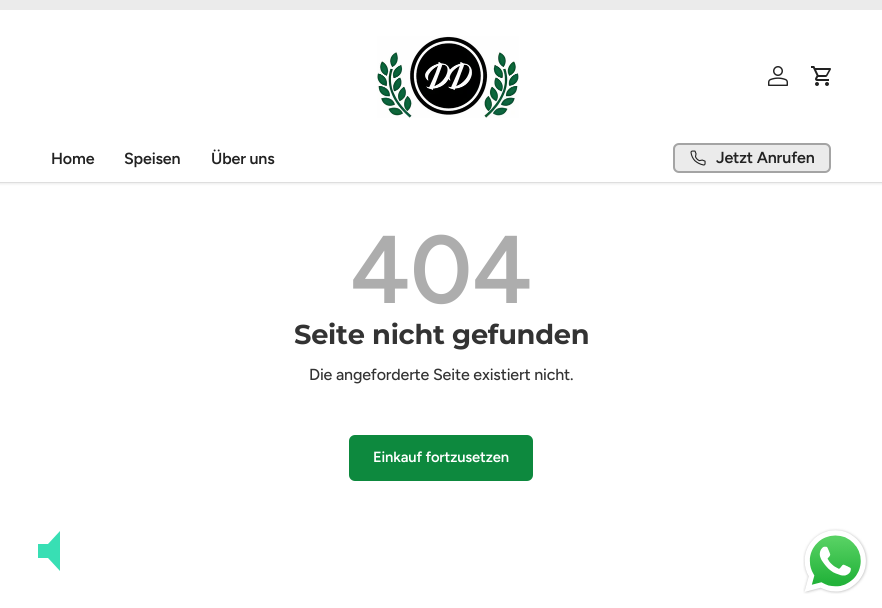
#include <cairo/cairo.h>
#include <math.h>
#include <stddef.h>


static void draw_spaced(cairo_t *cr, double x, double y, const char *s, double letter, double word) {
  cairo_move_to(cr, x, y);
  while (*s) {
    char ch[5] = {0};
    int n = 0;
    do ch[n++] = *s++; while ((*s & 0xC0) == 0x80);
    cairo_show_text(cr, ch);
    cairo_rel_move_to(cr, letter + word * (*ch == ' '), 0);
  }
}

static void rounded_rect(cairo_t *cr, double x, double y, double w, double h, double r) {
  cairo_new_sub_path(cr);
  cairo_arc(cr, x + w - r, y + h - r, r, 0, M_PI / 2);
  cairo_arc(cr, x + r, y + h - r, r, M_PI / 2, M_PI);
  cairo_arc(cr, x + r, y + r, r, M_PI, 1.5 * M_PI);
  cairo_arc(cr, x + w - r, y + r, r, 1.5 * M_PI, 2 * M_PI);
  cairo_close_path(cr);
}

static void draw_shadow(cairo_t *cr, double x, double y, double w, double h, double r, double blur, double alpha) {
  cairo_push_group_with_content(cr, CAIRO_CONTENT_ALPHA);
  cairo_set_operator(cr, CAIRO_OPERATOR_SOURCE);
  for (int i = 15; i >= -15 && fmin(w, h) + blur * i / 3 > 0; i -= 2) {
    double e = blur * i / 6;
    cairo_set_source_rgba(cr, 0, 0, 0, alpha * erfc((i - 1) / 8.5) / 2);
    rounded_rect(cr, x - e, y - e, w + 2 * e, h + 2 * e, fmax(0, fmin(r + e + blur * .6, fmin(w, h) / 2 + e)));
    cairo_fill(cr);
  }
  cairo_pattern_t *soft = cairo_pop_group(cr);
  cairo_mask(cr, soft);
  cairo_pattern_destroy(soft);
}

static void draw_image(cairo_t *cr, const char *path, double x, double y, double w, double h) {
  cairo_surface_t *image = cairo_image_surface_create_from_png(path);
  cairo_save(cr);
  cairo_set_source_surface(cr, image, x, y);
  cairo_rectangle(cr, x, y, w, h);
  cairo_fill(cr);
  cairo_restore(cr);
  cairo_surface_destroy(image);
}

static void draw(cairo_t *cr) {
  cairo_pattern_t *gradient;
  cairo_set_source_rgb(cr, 1, 1, 1);
  cairo_paint(cr);
  cairo_set_source_rgb(cr, 0, 0, 0);
  draw_shadow(cr, -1, 9, 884, 175, 0, 1.5, 0.08);
  cairo_set_source_rgb(cr, 235 / 255.0, 235 / 255.0, 235 / 255.0);
  cairo_rectangle(cr, 0, 0, 882, 10);
  cairo_fill(cr);
  cairo_set_source_rgb(cr, 1, 1, 1);
  cairo_rectangle(cr, 0, 10, 882, 172);
  cairo_fill(cr);
  draw_image(cr, "images/1.png", 377, 36, 142, 82);
  draw_image(cr, "images/2.png", 768, 66, 20, 20);
  draw_image(cr, "images/3.png", 811, 66, 20, 20);
  cairo_save(cr);
  rounded_rect(cr, 673, 143, 158, 30, 6);
  cairo_clip(cr);
  gradient = cairo_pattern_create_linear(377, 103, 819, 213);
  cairo_pattern_add_color_stop_rgba(gradient, 0.6, 213 / 255.0, 213 / 255.0, 213 / 255.0, 1);
  cairo_pattern_add_color_stop_rgba(gradient, 0.6, 235 / 255.0, 235 / 255.0, 235 / 255.0, 1);
  cairo_pattern_add_color_stop_rgba(gradient, 1, 235 / 255.0, 235 / 255.0, 235 / 255.0, 1);
  cairo_set_source(cr, gradient);
  cairo_pattern_destroy(gradient);
  cairo_rectangle(cr, 673, 145, 156, 26);
  cairo_fill(cr);
  cairo_restore(cr);
  rounded_rect(cr, 674, 144, 156, 28, 5);
  cairo_set_source_rgb(cr, 164 / 255.0, 164 / 255.0, 164 / 255.0);
  cairo_stroke(cr);
  draw_image(cr, "images/4.png", 690, 150, 16, 16);
  cairo_set_source_rgb(cr, 222 / 255.0, 222 / 255.0, 222 / 255.0);
  cairo_rectangle(cr, 0, 182, 882, 1);
  cairo_fill(cr);
  gradient = cairo_pattern_create_linear(-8, 392, 522, 524);
  cairo_pattern_add_color_stop_rgba(gradient, 0.6, 53 / 255.0, 167 / 255.0, 98 / 255.0, 1);
  cairo_pattern_add_color_stop_rgba(gradient, 0.6, 13 / 255.0, 137 / 255.0, 62 / 255.0, 1);
  cairo_pattern_add_color_stop_rgba(gradient, 1, 13 / 255.0, 137 / 255.0, 62 / 255.0, 1);
  cairo_set_source(cr, gradient);
  cairo_pattern_destroy(gradient);
  rounded_rect(cr, 349, 435, 184, 46, 6);
  cairo_fill(cr);
  cairo_set_source_rgb(cr, 56 / 255.0, 223 / 255.0, 180 / 255.0);
  cairo_new_path(cr);
  cairo_move_to(cr, 38, 544);
  cairo_line_to(cr, 38, 558);
  cairo_line_to(cr, 48, 558);
  cairo_line_to(cr, 60, 571);
  cairo_line_to(cr, 60, 531);
  cairo_line_to(cr, 48, 544);
  cairo_close_path(cr);
  cairo_fill(cr);
  draw_image(cr, "images/5.png", 803, 528, 66, 66);
  cairo_select_font_face(cr, "Figtree SemiBold", CAIRO_FONT_SLANT_NORMAL, CAIRO_FONT_WEIGHT_NORMAL);
  cairo_set_font_size(cr, 16);
  cairo_set_source_rgb(cr, 34 / 255.0, 34 / 255.0, 34 / 255.0);
  draw_spaced(cr, 51, 164, "Home", -0.15, 0);
  draw_spaced(cr, 124, 164, "Speisen", -0.15, 0);
  draw_spaced(cr, 211, 164, "Über uns", -0.15, 0);
  draw_spaced(cr, 716, 163, "Jetzt Anrufen", -0.15, 0);
  cairo_set_font_size(cr, 96);
  cairo_set_source_rgb(cr, 173 / 255.0, 173 / 255.0, 173 / 255.0);
  draw_spaced(cr, 350, 303, "404", -0.15, 0);
  cairo_select_font_face(cr, "Montserrat", CAIRO_FONT_SLANT_NORMAL, CAIRO_FONT_WEIGHT_BOLD);
  cairo_set_font_size(cr, 27.25);
  cairo_set_source_rgb(cr, 51 / 255.0, 51 / 255.0, 51 / 255.0);
  draw_spaced(cr, 294, 344, "Seite nicht gefunden", -0.25, 0);
  cairo_select_font_face(cr, "Figtree Medium", CAIRO_FONT_SLANT_NORMAL, CAIRO_FONT_WEIGHT_NORMAL);
  cairo_set_font_size(cr, 16);
  draw_spaced(cr, 309, 380, "Die angeforderte Seite existiert nicht.", -0.15, 0);
  cairo_select_font_face(cr, "Figtree SemiBold", CAIRO_FONT_SLANT_NORMAL, CAIRO_FONT_WEIGHT_NORMAL);
  cairo_set_font_size(cr, 14.75);
  cairo_set_source_rgb(cr, 1, 1, 1);
  draw_spaced(cr, 373, 462, "Einkauf fortzusetzen", -0.15, 0);
}

int main(void) {
  cairo_surface_t *surface = cairo_image_surface_create(CAIRO_FORMAT_RGB24, 882, 608);
  cairo_t *cr = cairo_create(surface);
  cairo_font_options_t *options = cairo_font_options_create();
  cairo_font_options_set_hint_metrics(options, CAIRO_HINT_METRICS_OFF);
  cairo_font_options_set_hint_style(options, CAIRO_HINT_STYLE_NONE);
  cairo_set_font_options(cr, options);
  cairo_set_miter_limit(cr, 4);
  draw(cr);
  cairo_surface_write_to_png(surface, "out.png");
  cairo_font_options_destroy(options);
  cairo_destroy(cr);
  cairo_surface_destroy(surface);
  return 0;
}
